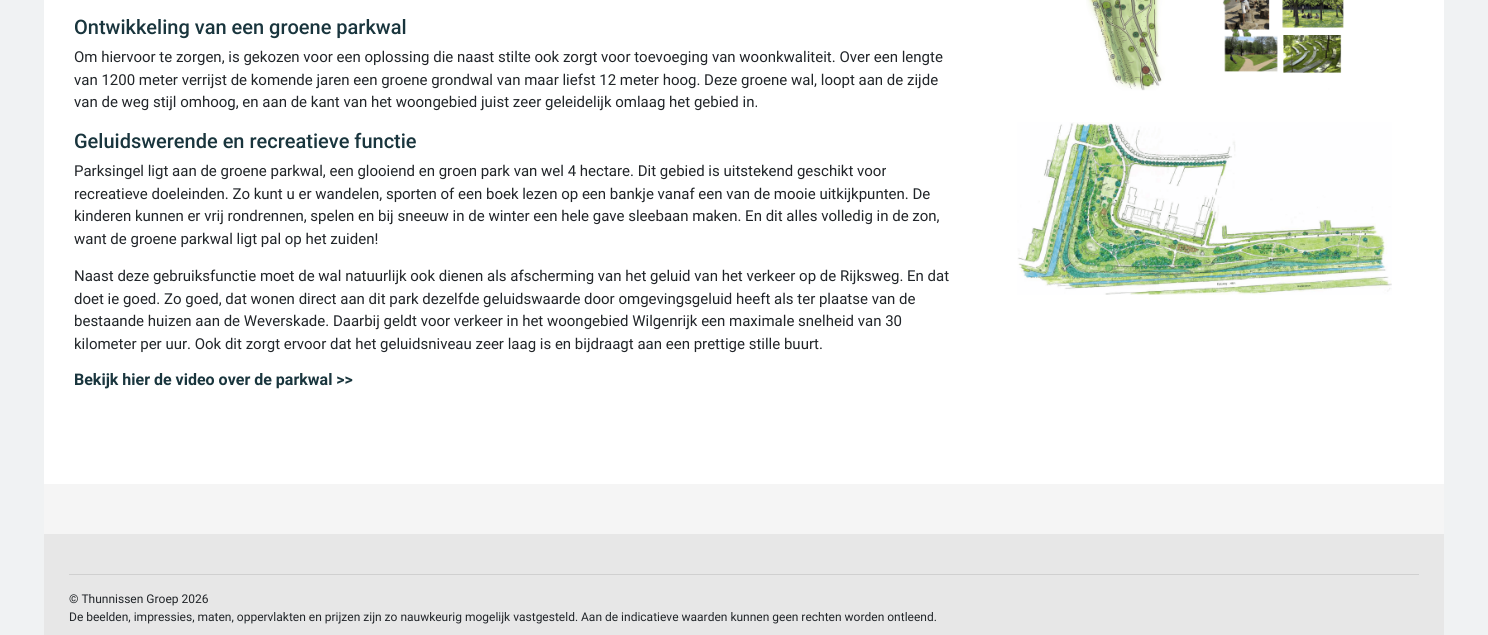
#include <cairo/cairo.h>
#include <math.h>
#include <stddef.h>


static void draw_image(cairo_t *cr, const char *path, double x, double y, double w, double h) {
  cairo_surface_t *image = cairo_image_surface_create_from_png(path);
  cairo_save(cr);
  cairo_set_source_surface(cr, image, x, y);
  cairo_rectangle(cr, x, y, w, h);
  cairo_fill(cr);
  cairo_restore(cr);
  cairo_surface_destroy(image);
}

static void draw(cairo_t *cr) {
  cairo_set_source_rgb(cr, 240 / 255.0, 242 / 255.0, 243 / 255.0);
  cairo_paint(cr);
  cairo_set_source_rgb(cr, 1, 1, 1);
  cairo_rectangle(cr, 44, 0, 1400, 484);
  cairo_fill(cr);
  draw_image(cr, "images/1.png", 1086, 0, 258, 91);
  draw_image(cr, "images/2.png", 1017, 122, 375, 173);
  cairo_set_source_rgb(cr, 245 / 255.0, 245 / 255.0, 245 / 255.0);
  cairo_rectangle(cr, 44, 484, 1400, 50);
  cairo_fill(cr);
  cairo_set_source_rgb(cr, 231 / 255.0, 231 / 255.0, 231 / 255.0);
  cairo_rectangle(cr, 44, 534, 1400, 101);
  cairo_fill(cr);
  cairo_set_source_rgb(cr, 208 / 255.0, 208 / 255.0, 208 / 255.0);
  cairo_rectangle(cr, 69, 574, 1350, 1);
  cairo_fill(cr);
  cairo_select_font_face(cr, "Roboto Medium", CAIRO_FONT_SLANT_NORMAL, CAIRO_FONT_WEIGHT_NORMAL);
  cairo_set_font_size(cr, 20);
  cairo_set_source_rgb(cr, 25 / 255.0, 53 / 255.0, 61 / 255.0);
  cairo_move_to(cr, 74, 34);
  cairo_show_text(cr, "Ontwikkeling van een groene parkwal");
  cairo_select_font_face(cr, "Roboto", CAIRO_FONT_SLANT_NORMAL, CAIRO_FONT_WEIGHT_NORMAL);
  cairo_set_font_size(cr, 15);
  cairo_set_source_rgb(cr, 33 / 255.0, 37 / 255.0, 41 / 255.0);
  cairo_move_to(cr, 74, 62);
  cairo_show_text(cr, "Om hiervoor te zorgen, is gekozen voor een oplossing die naast stilte ook zorgt voor toevoeging van woonkwaliteit. Over een lengte");
  cairo_move_to(cr, 74, 85);
  cairo_show_text(cr, "van 1200 meter verrijst de komende jaren een groene grondwal van maar liefst 12 meter hoog. Deze groene wal, loopt aan de zijde");
  cairo_move_to(cr, 74, 107);
  cairo_show_text(cr, "van de weg stijl omhoog, en aan de kant van het woongebied juist zeer geleidelijk omlaag het gebied in.");
  cairo_select_font_face(cr, "Roboto Medium", CAIRO_FONT_SLANT_NORMAL, CAIRO_FONT_WEIGHT_NORMAL);
  cairo_set_font_size(cr, 20);
  cairo_set_source_rgb(cr, 25 / 255.0, 53 / 255.0, 61 / 255.0);
  cairo_move_to(cr, 74, 148);
  cairo_show_text(cr, "Geluidswerende en recreatieve functie");
  cairo_select_font_face(cr, "Roboto", CAIRO_FONT_SLANT_NORMAL, CAIRO_FONT_WEIGHT_NORMAL);
  cairo_set_font_size(cr, 15);
  cairo_set_source_rgb(cr, 33 / 255.0, 37 / 255.0, 41 / 255.0);
  cairo_move_to(cr, 74, 176);
  cairo_show_text(cr, "Parksingel ligt aan de groene parkwal, een glooiend en groen park van wel 4 hectare. Dit gebied is uitstekend geschikt voor");
  cairo_move_to(cr, 74, 199);
  cairo_show_text(cr, "recreatieve doeleinden. Zo kunt u er wandelen, sporten of een boek lezen op een bankje vanaf een van de mooie uitkijkpunten. De");
  cairo_move_to(cr, 74, 221);
  cairo_show_text(cr, "kinderen kunnen er vrij rondrennen, spelen en bij sneeuw in de winter een hele gave sleebaan maken. En dit alles volledig in de zon,");
  cairo_move_to(cr, 74, 244);
  cairo_show_text(cr, "want de groene parkwal ligt pal op het zuiden!");
  cairo_move_to(cr, 74, 281);
  cairo_show_text(cr, "Naast deze gebruiksfunctie moet de wal natuurlijk ook dienen als afscherming van het geluid van het verkeer op de Rijksweg. En dat");
  cairo_move_to(cr, 74, 304);
  cairo_show_text(cr, "doet ie goed. Zo goed, dat wonen direct aan dit park dezelfde geluidswaarde door omgevingsgeluid heeft als ter plaatse van de");
  cairo_move_to(cr, 74, 326);
  cairo_show_text(cr, "bestaande huizen aan de Weverskade. Daarbij geldt voor verkeer in het woongebied Wilgenrijk een maximale snelheid van 30");
  cairo_move_to(cr, 74, 349);
  cairo_show_text(cr, "kilometer per uur. Ook dit zorgt ervoor dat het geluidsniveau zeer laag is en bijdraagt aan een prettige stille buurt.");
  cairo_select_font_face(cr, "Roboto", CAIRO_FONT_SLANT_NORMAL, CAIRO_FONT_WEIGHT_BOLD);
  cairo_set_font_size(cr, 16);
  cairo_set_source_rgb(cr, 25 / 255.0, 53 / 255.0, 61 / 255.0);
  cairo_move_to(cr, 74, 385);
  cairo_show_text(cr, "Bekijk hier de video over de parkwal >>");
  cairo_select_font_face(cr, "Roboto", CAIRO_FONT_SLANT_NORMAL, CAIRO_FONT_WEIGHT_NORMAL);
  cairo_set_font_size(cr, 12);
  cairo_set_source_rgb(cr, 33 / 255.0, 37 / 255.0, 41 / 255.0);
  cairo_move_to(cr, 69, 603);
  cairo_show_text(cr, "© Thunnissen Groep 2026");
  cairo_move_to(cr, 69, 621);
  cairo_show_text(cr, "De beelden, impressies, maten, oppervlakten en prijzen zijn zo nauwkeurig mogelijk vastgesteld. Aan de indicatieve waarden kunnen geen rechten worden ontleend.");
}

int main(void) {
  cairo_surface_t *surface = cairo_image_surface_create(CAIRO_FORMAT_RGB24, 1488, 635);
  cairo_t *cr = cairo_create(surface);
  cairo_font_options_t *options = cairo_font_options_create();
  cairo_font_options_set_hint_metrics(options, CAIRO_HINT_METRICS_OFF);
  cairo_font_options_set_hint_style(options, CAIRO_HINT_STYLE_NONE);
  cairo_set_font_options(cr, options);
  cairo_set_miter_limit(cr, 4);
  draw(cr);
  cairo_surface_write_to_png(surface, "out.png");
  cairo_font_options_destroy(options);
  cairo_destroy(cr);
  cairo_surface_destroy(surface);
  return 0;
}
